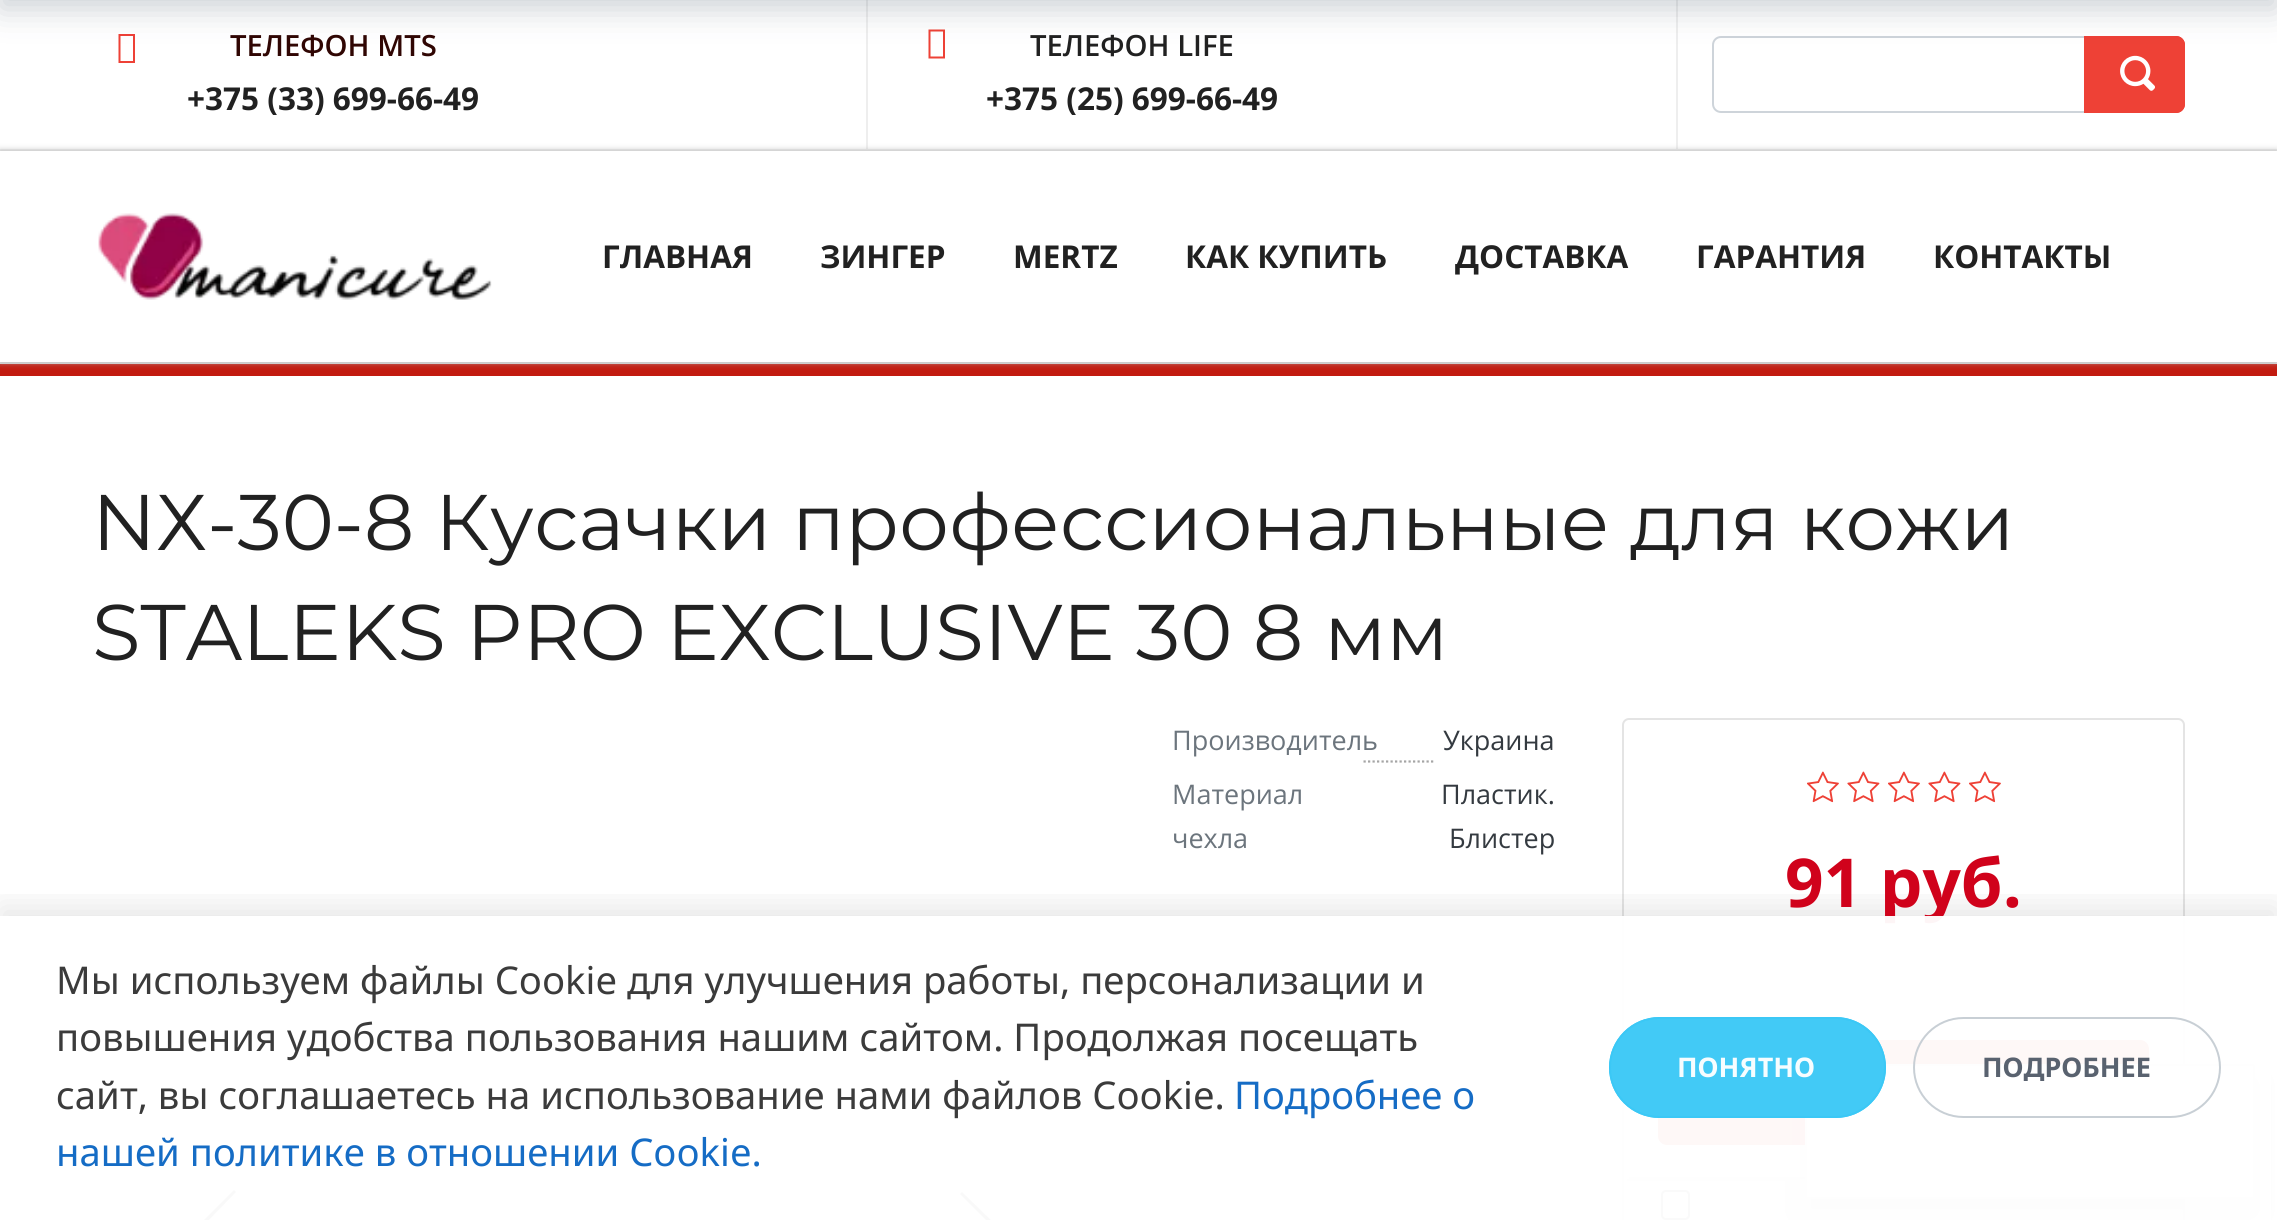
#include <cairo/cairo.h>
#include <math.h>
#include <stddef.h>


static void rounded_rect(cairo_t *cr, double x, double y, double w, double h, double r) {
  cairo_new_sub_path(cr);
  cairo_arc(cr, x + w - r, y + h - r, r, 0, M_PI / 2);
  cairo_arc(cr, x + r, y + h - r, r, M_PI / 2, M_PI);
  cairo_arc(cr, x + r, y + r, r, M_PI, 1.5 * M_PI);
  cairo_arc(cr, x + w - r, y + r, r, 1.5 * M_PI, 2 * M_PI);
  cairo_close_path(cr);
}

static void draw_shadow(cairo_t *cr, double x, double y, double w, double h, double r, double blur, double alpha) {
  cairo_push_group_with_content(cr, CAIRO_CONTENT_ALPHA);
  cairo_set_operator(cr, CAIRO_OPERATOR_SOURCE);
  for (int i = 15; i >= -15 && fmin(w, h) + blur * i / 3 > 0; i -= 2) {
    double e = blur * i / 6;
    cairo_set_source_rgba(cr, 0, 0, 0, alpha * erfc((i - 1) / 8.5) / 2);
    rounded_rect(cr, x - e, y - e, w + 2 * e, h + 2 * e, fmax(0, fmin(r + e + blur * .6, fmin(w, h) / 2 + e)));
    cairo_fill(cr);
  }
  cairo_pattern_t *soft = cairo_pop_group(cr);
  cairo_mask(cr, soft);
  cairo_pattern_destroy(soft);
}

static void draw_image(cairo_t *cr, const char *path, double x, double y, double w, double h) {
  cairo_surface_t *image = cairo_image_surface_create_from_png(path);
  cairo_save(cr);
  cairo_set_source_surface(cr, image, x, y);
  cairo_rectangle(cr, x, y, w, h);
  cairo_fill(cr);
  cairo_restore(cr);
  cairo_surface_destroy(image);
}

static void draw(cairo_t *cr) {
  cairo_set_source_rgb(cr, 1, 1, 1);
  cairo_paint(cr);
  cairo_set_source_rgb(cr, 238 / 255.0, 238 / 255.0, 238 / 255.0);
  cairo_rectangle(cr, 0, 149, 2277, 2);
  cairo_fill(cr);
  cairo_rectangle(cr, 866, 0, 2, 149);
  cairo_fill(cr);
  cairo_set_source_rgb(cr, 238 / 255.0, 65 / 255.0, 54 / 255.0);
  cairo_new_path(cr);
  cairo_move_to(cr, 118.5, 63);
  cairo_line_to(cr, 118.5, 34);
  cairo_line_to(cr, 135, 34);
  cairo_line_to(cr, 135, 63);
  cairo_close_path(cr);
  cairo_move_to(cr, 120.5, 61);
  cairo_line_to(cr, 133, 61);
  cairo_line_to(cr, 133, 36);
  cairo_line_to(cr, 120.5, 36);
  cairo_close_path(cr);
  cairo_fill(cr);
  cairo_set_source_rgb(cr, 238 / 255.0, 238 / 255.0, 238 / 255.0);
  cairo_rectangle(cr, 1676, 0, 2, 149);
  cairo_fill(cr);
  cairo_set_source_rgb(cr, 238 / 255.0, 65 / 255.0, 54 / 255.0);
  cairo_new_path(cr);
  cairo_move_to(cr, 928.5, 58.5);
  cairo_line_to(cr, 928.5, 29.5);
  cairo_line_to(cr, 945, 29.5);
  cairo_line_to(cr, 945, 58.5);
  cairo_close_path(cr);
  cairo_move_to(cr, 930.5, 56.5);
  cairo_line_to(cr, 943, 56.5);
  cairo_line_to(cr, 943, 31.5);
  cairo_line_to(cr, 930.5, 31.5);
  cairo_close_path(cr);
  cairo_fill(cr);
  cairo_new_path(cr);
  cairo_move_to(cr, 1721, 37);
  cairo_line_to(cr, 2085, 37);
  cairo_line_to(cr, 2085, 112);
  cairo_line_to(cr, 1721, 112);
  cairo_curve_to(cr, 1716.5, 112, 1713, 108.5, 1713, 104);
  cairo_line_to(cr, 1713, 45);
  cairo_curve_to(cr, 1713, 40.5, 1716.5, 37, 1721, 37);
  cairo_close_path(cr);
  cairo_set_source_rgb(cr, 206 / 255.0, 212 / 255.0, 218 / 255.0);
  cairo_stroke(cr);
  cairo_set_source_rgb(cr, 238 / 255.0, 65 / 255.0, 54 / 255.0);
  cairo_new_path(cr);
  cairo_move_to(cr, 2084, 36);
  cairo_line_to(cr, 2176, 36);
  cairo_curve_to(cr, 2181, 36, 2185, 40, 2185, 45);
  cairo_line_to(cr, 2185, 104);
  cairo_curve_to(cr, 2185, 109, 2181, 113, 2176, 113);
  cairo_line_to(cr, 2084, 113);
  cairo_close_path(cr);
  cairo_fill(cr);
  draw_image(cr, "images/1.png", 2120, 55, 35, 36);
  cairo_new_path(cr);
  cairo_move_to(cr, 2085, 37);
  cairo_line_to(cr, 2176, 37);
  cairo_curve_to(cr, 2180.5, 37, 2184, 40.5, 2184, 45);
  cairo_line_to(cr, 2184, 104);
  cairo_curve_to(cr, 2184, 108.5, 2180.5, 112, 2176, 112);
  cairo_line_to(cr, 2085, 112);
  cairo_close_path(cr);
  cairo_stroke(cr);
  cairo_set_source_rgb(cr, 194 / 255.0, 27 / 255.0, 15 / 255.0);
  cairo_rectangle(cr, 0, 364, 2277, 12);
  cairo_fill(cr);
  cairo_set_source_rgb(cr, 221 / 255.0, 221 / 255.0, 221 / 255.0);
  cairo_rectangle(cr, 0, 362, 2277, 2);
  cairo_fill(cr);
  cairo_save(cr);
  cairo_set_fill_rule(cr, CAIRO_FILL_RULE_EVEN_ODD);
  cairo_new_path(cr);
  cairo_move_to(cr, 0, 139);
  cairo_line_to(cr, 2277, 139);
  cairo_line_to(cr, 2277, 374);
  cairo_line_to(cr, 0, 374);
  cairo_close_path(cr);
  cairo_move_to(cr, 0, 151);
  cairo_line_to(cr, 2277, 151);
  cairo_line_to(cr, 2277, 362);
  cairo_line_to(cr, 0, 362);
  cairo_close_path(cr);
  cairo_clip(cr);
  cairo_set_source_rgb(cr, 181 / 255.0, 181 / 255.0, 181 / 255.0);
  draw_shadow(cr, 0, 151, 2277, 211, 0, 3.5, 1);
  cairo_restore(cr);
  draw_image(cr, "images/2.png", 98, 213, 394, 87);
  cairo_set_source_rgb(cr, 32 / 255.0, 54 / 255.0, 74 / 255.0);
  draw_shadow(cr, 0, -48, 2277, 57, 0, 16, 0.23);
  cairo_new_path(cr);
  cairo_move_to(cr, 1363.5, 761.5);
  cairo_line_to(cr, 1435.5, 761.5);
  cairo_set_source_rgb(cr, 165 / 255.0, 165 / 255.0, 165 / 255.0);
  cairo_set_line_width(cr, 2.2);
  cairo_set_dash(cr, (double[]){2.25, 2.25}, 2, 0);
  cairo_stroke(cr);
  rounded_rect(cr, 1623, 719, 561, 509, 6);
  cairo_set_source_rgb(cr, 228 / 255.0, 228 / 255.0, 228 / 255.0);
  cairo_set_line_width(cr, 2);
  cairo_set_dash(cr, NULL, 0, 0);
  cairo_stroke(cr);
  draw_image(cr, "images/3.png", 1807, 771, 32, 32);
  draw_image(cr, "images/4.png", 1847, 771, 33, 32);
  draw_image(cr, "images/3.png", 1888, 771, 32, 32);
  draw_image(cr, "images/4.png", 1928, 771, 33, 32);
  draw_image(cr, "images/3.png", 1969, 771, 32, 32);
  cairo_set_source_rgb(cr, 238 / 255.0, 65 / 255.0, 54 / 255.0);
  rounded_rect(cr, 1659, 1041, 489, 103, 8);
  cairo_fill_preserve(cr);
  cairo_stroke(cr);
  cairo_set_source_rgb(cr, 243 / 255.0, 243 / 255.0, 243 / 255.0);
  rounded_rect(cr, 1627, 1177, 556, 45, 2);
  cairo_fill(cr);
  cairo_set_source_rgb(cr, 238 / 255.0, 238 / 255.0, 238 / 255.0);
  cairo_new_path(cr);
  cairo_move_to(cr, 2180, 1179);
  cairo_line_to(cr, 1627, 1179);
  cairo_line_to(cr, 1627, 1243);
  cairo_line_to(cr, 1627, 1181);
  cairo_line_to(cr, 2182, 1181);
  cairo_line_to(cr, 2182, 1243);
  cairo_curve_to(cr, 2183, 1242, 2182, 1186, 2182, 1179);
  cairo_close_path(cr);
  cairo_fill(cr);
  cairo_set_source_rgb(cr, 228 / 255.0, 228 / 255.0, 228 / 255.0);
  cairo_rectangle(cr, 1629, 1177, 176, 2);
  cairo_fill(cr);
  cairo_set_source_rgb(cr, 1, 1, 1);
  rounded_rect(cr, 1662, 1191, 27, 28, 4);
  cairo_fill_preserve(cr);
  cairo_set_source_rgb(cr, 118 / 255.0, 118 / 255.0, 118 / 255.0);
  cairo_stroke(cr);
  cairo_set_source_rgb(cr, 110 / 255.0, 110 / 255.0, 110 / 255.0);
  cairo_set_fill_rule(cr, CAIRO_FILL_RULE_EVEN_ODD);
  cairo_new_path(cr);
  cairo_move_to(cr, 236, 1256);
  cairo_line_to(cr, 205, 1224);
  cairo_line_to(cr, 236, 1192);
  cairo_line_to(cr, 234, 1190);
  cairo_line_to(cr, 200, 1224);
  cairo_line_to(cr, 234, 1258);
  cairo_close_path(cr);
  cairo_fill(cr);
  cairo_new_path(cr);
  cairo_move_to(cr, 960, 1194);
  cairo_line_to(cr, 991, 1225);
  cairo_line_to(cr, 960, 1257);
  cairo_line_to(cr, 962, 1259);
  cairo_line_to(cr, 996, 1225);
  cairo_line_to(cr, 962, 1192);
  cairo_close_path(cr);
  cairo_fill(cr);
  cairo_set_source_rgb(cr, 0, 0, 0);
  draw_shadow(cr, 1805, 1080, 450, 135, 2, 11, 0.15);
  cairo_set_source_rgb(cr, 1, 1, 1);
  rounded_rect(cr, 1806, 1065, 448, 133, 1);
  cairo_fill_preserve(cr);
  cairo_set_source_rgb(cr, 240 / 255.0, 240 / 255.0, 240 / 255.0);
  cairo_stroke(cr);
  cairo_save(cr);
  cairo_set_fill_rule(cr, CAIRO_FILL_RULE_WINDING);
  cairo_rectangle(cr, 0, 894, 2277, 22);
  cairo_clip(cr);
  cairo_set_source_rgb(cr, 0, 0, 0);
  draw_shadow(cr, 0, 907, 2277, 306, 0, 16, 0.1);
  cairo_restore(cr);
  cairo_select_font_face(cr, "Open Sans SemiBold", CAIRO_FONT_SLANT_NORMAL, CAIRO_FONT_WEIGHT_NORMAL);
  cairo_set_font_size(cr, 29.25);
  cairo_set_source_rgb(cr, 48 / 255.0, 6 / 255.0, 3 / 255.0);
  cairo_move_to(cr, 230, 56);
  cairo_show_text(cr, "ТЕЛЕФОН MTS");
  cairo_select_font_face(cr, "Open Sans", CAIRO_FONT_SLANT_NORMAL, CAIRO_FONT_WEIGHT_BOLD);
  cairo_set_font_size(cr, 31.5);
  cairo_set_source_rgb(cr, 33 / 255.0, 33 / 255.0, 33 / 255.0);
  cairo_move_to(cr, 187, 110);
  cairo_show_text(cr, "+375 (33) 699-66-49");
  cairo_select_font_face(cr, "Open Sans SemiBold", CAIRO_FONT_SLANT_NORMAL, CAIRO_FONT_WEIGHT_NORMAL);
  cairo_set_font_size(cr, 29.25);
  cairo_move_to(cr, 1030, 56);
  cairo_show_text(cr, "ТЕЛЕФОН LIFE");
  cairo_select_font_face(cr, "Open Sans", CAIRO_FONT_SLANT_NORMAL, CAIRO_FONT_WEIGHT_BOLD);
  cairo_set_font_size(cr, 31.5);
  cairo_move_to(cr, 986, 110);
  cairo_show_text(cr, "+375 (25) 699-66-49");
  cairo_move_to(cr, 602, 268);
  cairo_show_text(cr, "ГЛАВНАЯ");
  cairo_move_to(cr, 820, 268);
  cairo_show_text(cr, "ЗИНГЕР");
  cairo_move_to(cr, 1013, 268);
  cairo_show_text(cr, "MERTZ");
  cairo_move_to(cr, 1185, 268);
  cairo_show_text(cr, "КАК КУПИТЬ");
  cairo_move_to(cr, 1455, 268);
  cairo_show_text(cr, "ДОСТАВКА");
  cairo_move_to(cr, 1696, 268);
  cairo_show_text(cr, "ГАРАНТИЯ");
  cairo_move_to(cr, 1933, 268);
  cairo_show_text(cr, "КОНТАКТЫ");
  cairo_select_font_face(cr, "Montserrat", CAIRO_FONT_SLANT_NORMAL, CAIRO_FONT_WEIGHT_NORMAL);
  cairo_set_font_size(cr, 78.75);
  cairo_move_to(cr, 92, 550);
  cairo_show_text(cr, "NХ-30-8 Кусачки профессиональные для кожи");
  cairo_move_to(cr, 92, 660);
  cairo_show_text(cr, "STALEKS PRO EXCLUSIVE 30 8 мм");
  cairo_select_font_face(cr, "Open Sans", CAIRO_FONT_SLANT_NORMAL, CAIRO_FONT_WEIGHT_NORMAL);
  cairo_set_font_size(cr, 27);
  cairo_set_source_rgb(cr, 108 / 255.0, 117 / 255.0, 125 / 255.0);
  cairo_move_to(cr, 1172, 750);
  cairo_show_text(cr, "Производитель");
  cairo_set_source_rgb(cr, 52 / 255.0, 58 / 255.0, 64 / 255.0);
  cairo_move_to(cr, 1443, 750);
  cairo_show_text(cr, "Украина");
  cairo_set_source_rgb(cr, 108 / 255.0, 117 / 255.0, 125 / 255.0);
  cairo_move_to(cr, 1172, 804);
  cairo_show_text(cr, "Материал");
  cairo_move_to(cr, 1172, 848);
  cairo_show_text(cr, "чехла");
  cairo_set_source_rgb(cr, 52 / 255.0, 58 / 255.0, 64 / 255.0);
  cairo_move_to(cr, 1441, 804);
  cairo_show_text(cr, "Пластик.");
  cairo_move_to(cr, 1449, 848);
  cairo_show_text(cr, "Блистер");
  cairo_select_font_face(cr, "Open Sans", CAIRO_FONT_SLANT_NORMAL, CAIRO_FONT_WEIGHT_BOLD);
  cairo_set_font_size(cr, 67.5);
  cairo_set_source_rgb(cr, 208 / 255.0, 2 / 255.0, 27 / 255.0);
  cairo_move_to(cr, 1785, 907);
  cairo_show_text(cr, "91 руб.");
  cairo_set_source_rgba(cr, 1, 1, 1, 0.96);
  cairo_rectangle(cr, 204, 916, 2067, 304);
  cairo_fill(cr);
  cairo_select_font_face(cr, "Noto Sans", CAIRO_FONT_SLANT_NORMAL, CAIRO_FONT_WEIGHT_NORMAL);
  cairo_set_font_size(cr, 38.25);
  cairo_set_source_rgb(cr, 59 / 255.0, 59 / 255.0, 59 / 255.0);
  cairo_move_to(cr, 56, 994);
  cairo_show_text(cr, "Мы используем файлы Cookie для улучшения работы, персонализации и");
  cairo_move_to(cr, 56, 1051);
  cairo_show_text(cr, "повышения удобства пользования нашим сайтом. Продолжая посещать");
  cairo_move_to(cr, 56, 1109);
  cairo_show_text(cr, "сайт, вы соглашаетесь на использование нами файлов Cookie.");
  cairo_set_source_rgb(cr, 21 / 255.0, 108 / 255.0, 197 / 255.0);
  cairo_move_to(cr, 1234, 1109);
  cairo_show_text(cr, "Подробнее о");
  cairo_move_to(cr, 56, 1166);
  cairo_show_text(cr, "нашей политике в отношении Cookie.");
  cairo_set_source_rgba(cr, 59 / 255.0, 200 / 255.0, 245 / 255.0, 0.96);
  rounded_rect(cr, 1609, 1017, 277, 101, 50.5);
  cairo_fill(cr);
  rounded_rect(cr, 1610, 1018, 275, 99, 49.5);
  cairo_stroke(cr);
  cairo_select_font_face(cr, "Noto Sans", CAIRO_FONT_SLANT_NORMAL, CAIRO_FONT_WEIGHT_BOLD);
  cairo_set_font_size(cr, 27);
  cairo_set_source_rgb(cr, 247 / 255.0, 253 / 255.0, 1);
  cairo_move_to(cr, 1677, 1077);
  cairo_show_text(cr, "ПОНЯТНО");
  rounded_rect(cr, 1914, 1018, 306, 99, 49.5);
  cairo_set_source_rgba(cr, 198 / 255.0, 205 / 255.0, 211 / 255.0, 0.96);
  cairo_stroke(cr);
  cairo_set_source_rgb(cr, 89 / 255.0, 98 / 255.0, 111 / 255.0);
  cairo_move_to(cr, 1982, 1077);
  cairo_show_text(cr, "ПОДРОБНЕЕ");
}

int main(void) {
  cairo_surface_t *surface = cairo_image_surface_create(CAIRO_FORMAT_RGB24, 2277, 1220);
  cairo_t *cr = cairo_create(surface);
  cairo_font_options_t *options = cairo_font_options_create();
  cairo_font_options_set_hint_metrics(options, CAIRO_HINT_METRICS_OFF);
  cairo_font_options_set_hint_style(options, CAIRO_HINT_STYLE_NONE);
  cairo_set_font_options(cr, options);
  cairo_set_miter_limit(cr, 4);
  draw(cr);
  cairo_surface_write_to_png(surface, "out.png");
  cairo_font_options_destroy(options);
  cairo_destroy(cr);
  cairo_surface_destroy(surface);
  return 0;
}
